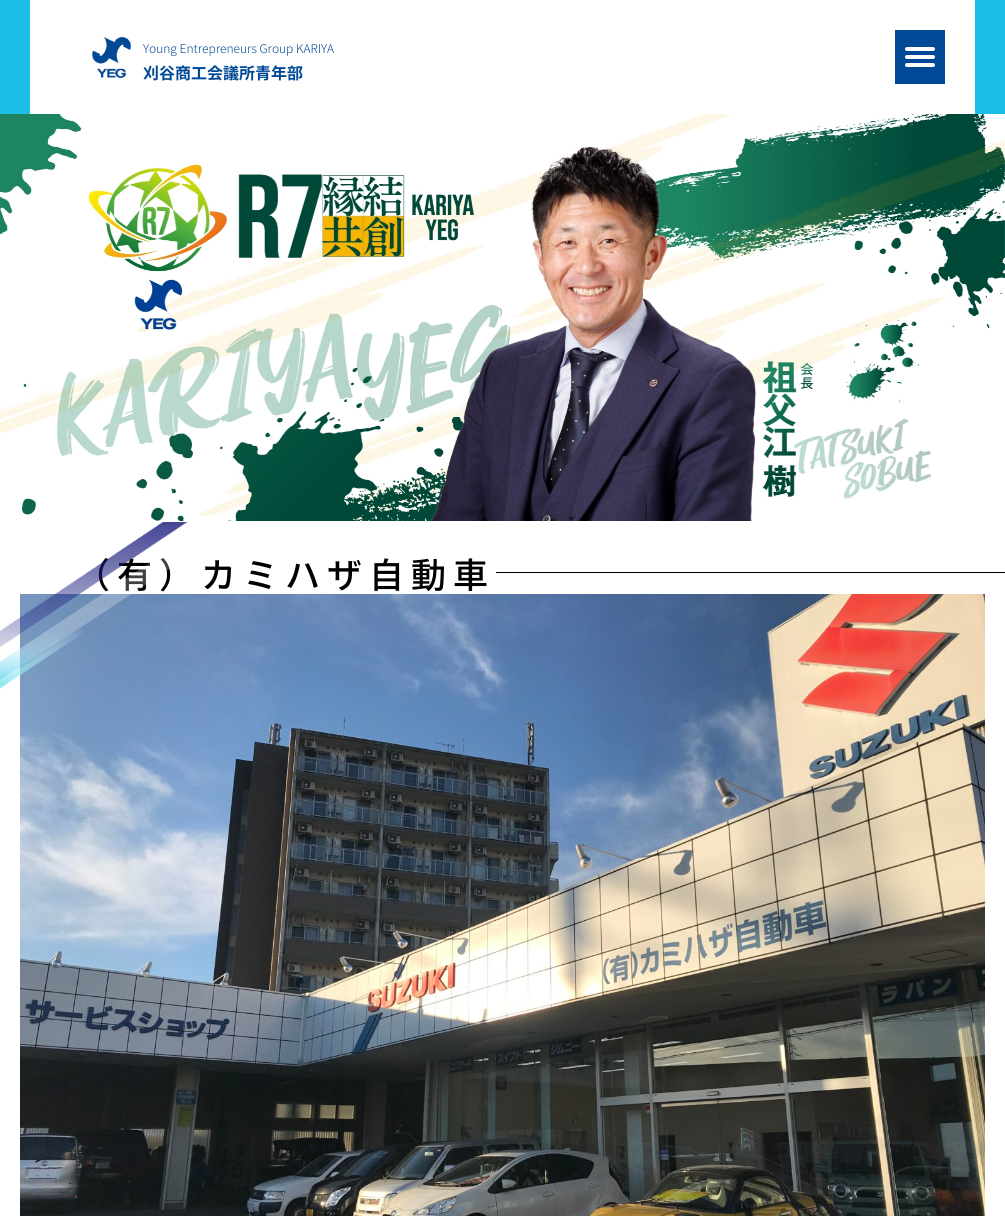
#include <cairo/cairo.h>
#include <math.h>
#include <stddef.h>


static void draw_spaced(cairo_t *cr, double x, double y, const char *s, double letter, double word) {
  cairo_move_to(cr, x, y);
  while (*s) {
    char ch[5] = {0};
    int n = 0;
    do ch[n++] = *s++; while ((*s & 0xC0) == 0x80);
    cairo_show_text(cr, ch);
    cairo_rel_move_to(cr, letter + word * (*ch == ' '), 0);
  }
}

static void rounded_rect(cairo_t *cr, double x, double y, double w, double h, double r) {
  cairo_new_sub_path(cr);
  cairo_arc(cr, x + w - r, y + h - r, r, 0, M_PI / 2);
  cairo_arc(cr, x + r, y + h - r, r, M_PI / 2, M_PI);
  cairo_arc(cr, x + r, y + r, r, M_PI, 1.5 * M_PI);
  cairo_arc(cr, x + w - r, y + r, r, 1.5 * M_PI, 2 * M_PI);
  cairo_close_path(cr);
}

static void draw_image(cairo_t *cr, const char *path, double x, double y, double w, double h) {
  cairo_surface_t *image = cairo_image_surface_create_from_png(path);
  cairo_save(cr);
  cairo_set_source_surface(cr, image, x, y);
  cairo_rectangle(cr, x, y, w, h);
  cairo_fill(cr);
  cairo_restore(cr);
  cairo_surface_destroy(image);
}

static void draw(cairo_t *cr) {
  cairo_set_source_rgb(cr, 1, 1, 1);
  cairo_paint(cr);
  cairo_set_source_rgb(cr, 26 / 255.0, 190 / 255.0, 231 / 255.0);
  cairo_rectangle(cr, 0, 0, 1005, 114);
  cairo_fill(cr);
  cairo_set_source_rgb(cr, 1, 1, 1);
  cairo_rectangle(cr, 30, 0, 945, 114);
  cairo_fill(cr);
  draw_image(cr, "images/1.png", 91, 36, 41, 43);
  cairo_set_source_rgb(cr, 0, 73 / 255.0, 150 / 255.0);
  cairo_rectangle(cr, 895, 30, 50, 54);
  cairo_fill(cr);
  cairo_set_source_rgb(cr, 1, 1, 1);
  rounded_rect(cr, 905, 47, 30, 4, 2);
  cairo_fill(cr);
  rounded_rect(cr, 905, 55, 30, 4, 2);
  cairo_fill(cr);
  rounded_rect(cr, 905, 63, 30, 4, 2);
  cairo_fill(cr);
  draw_image(cr, "images/2.png", 0, 114, 1005, 407);
  cairo_set_source_rgb(cr, 0, 0, 0);
  cairo_rectangle(cr, 496, 572, 509, 1);
  cairo_fill(cr);
  draw_image(cr, "images/4.png", 20, 594, 965, 622);
  cairo_select_font_face(cr, "Noto Sans JP Light", CAIRO_FONT_SLANT_NORMAL, CAIRO_FONT_WEIGHT_NORMAL);
  cairo_set_font_size(cr, 12);
  cairo_set_source_rgb(cr, 0, 73 / 255.0, 150 / 255.0);
  cairo_move_to(cr, 143, 53);
  cairo_show_text(cr, "Young Entrepreneurs Group KARIYA");
  cairo_select_font_face(cr, "Noto Sans JP", CAIRO_FONT_SLANT_NORMAL, CAIRO_FONT_WEIGHT_BOLD);
  cairo_set_font_size(cr, 16);
  cairo_move_to(cr, 143, 79);
  cairo_show_text(cr, "刈谷商工会議所青年部");
  cairo_select_font_face(cr, "Noto Sans JP Medium", CAIRO_FONT_SLANT_NORMAL, CAIRO_FONT_WEIGHT_NORMAL);
  cairo_set_font_size(cr, 35);
  cairo_set_source_rgb(cr, 0, 0, 0);
  draw_spaced(cr, 75, 588, "（有）カミハザ自動車", 7, 0);
  draw_image(cr, "images/3.png", 0, 522, 188, 167);
}

int main(void) {
  cairo_surface_t *surface = cairo_image_surface_create(CAIRO_FORMAT_RGB24, 1005, 1216);
  cairo_t *cr = cairo_create(surface);
  cairo_font_options_t *options = cairo_font_options_create();
  cairo_font_options_set_hint_metrics(options, CAIRO_HINT_METRICS_OFF);
  cairo_font_options_set_hint_style(options, CAIRO_HINT_STYLE_NONE);
  cairo_set_font_options(cr, options);
  cairo_set_miter_limit(cr, 4);
  draw(cr);
  cairo_surface_write_to_png(surface, "out.png");
  cairo_font_options_destroy(options);
  cairo_destroy(cr);
  cairo_surface_destroy(surface);
  return 0;
}
